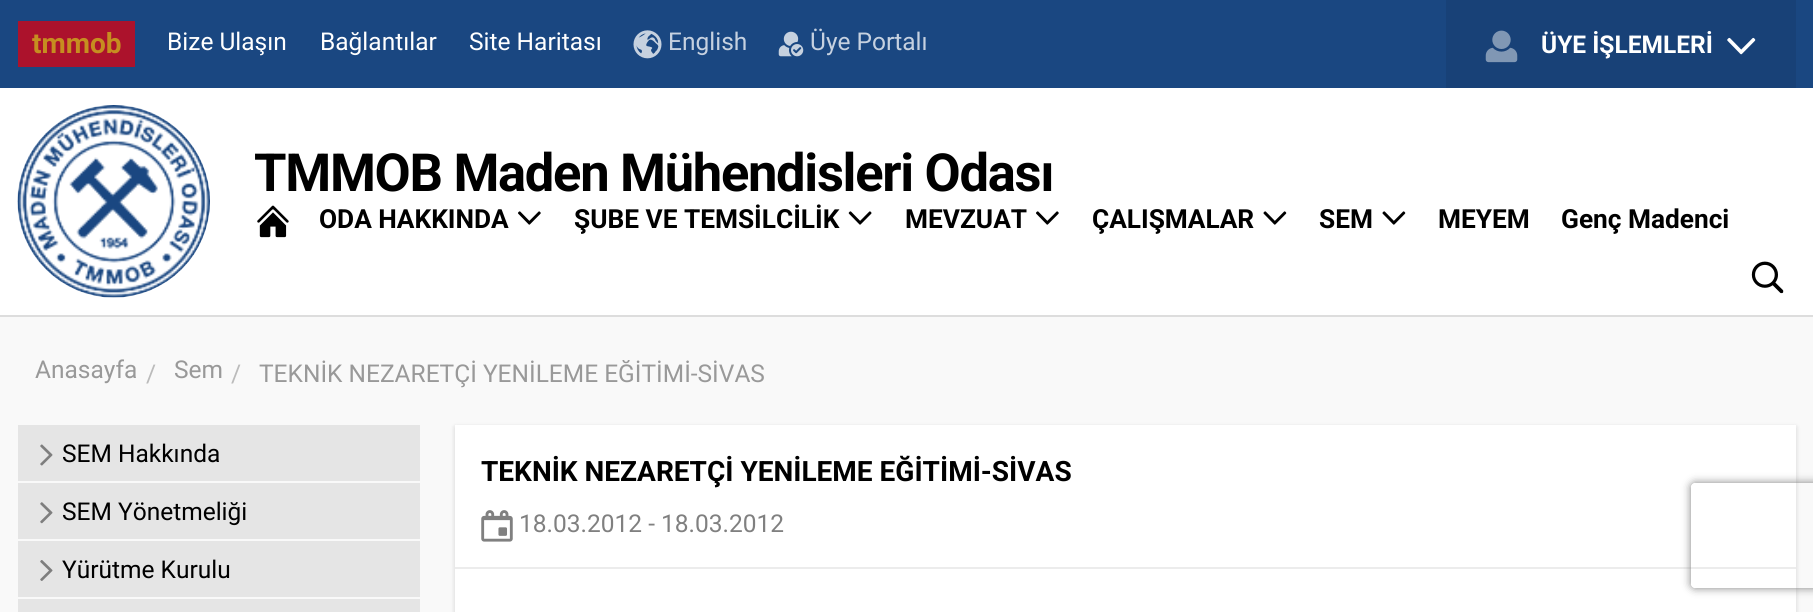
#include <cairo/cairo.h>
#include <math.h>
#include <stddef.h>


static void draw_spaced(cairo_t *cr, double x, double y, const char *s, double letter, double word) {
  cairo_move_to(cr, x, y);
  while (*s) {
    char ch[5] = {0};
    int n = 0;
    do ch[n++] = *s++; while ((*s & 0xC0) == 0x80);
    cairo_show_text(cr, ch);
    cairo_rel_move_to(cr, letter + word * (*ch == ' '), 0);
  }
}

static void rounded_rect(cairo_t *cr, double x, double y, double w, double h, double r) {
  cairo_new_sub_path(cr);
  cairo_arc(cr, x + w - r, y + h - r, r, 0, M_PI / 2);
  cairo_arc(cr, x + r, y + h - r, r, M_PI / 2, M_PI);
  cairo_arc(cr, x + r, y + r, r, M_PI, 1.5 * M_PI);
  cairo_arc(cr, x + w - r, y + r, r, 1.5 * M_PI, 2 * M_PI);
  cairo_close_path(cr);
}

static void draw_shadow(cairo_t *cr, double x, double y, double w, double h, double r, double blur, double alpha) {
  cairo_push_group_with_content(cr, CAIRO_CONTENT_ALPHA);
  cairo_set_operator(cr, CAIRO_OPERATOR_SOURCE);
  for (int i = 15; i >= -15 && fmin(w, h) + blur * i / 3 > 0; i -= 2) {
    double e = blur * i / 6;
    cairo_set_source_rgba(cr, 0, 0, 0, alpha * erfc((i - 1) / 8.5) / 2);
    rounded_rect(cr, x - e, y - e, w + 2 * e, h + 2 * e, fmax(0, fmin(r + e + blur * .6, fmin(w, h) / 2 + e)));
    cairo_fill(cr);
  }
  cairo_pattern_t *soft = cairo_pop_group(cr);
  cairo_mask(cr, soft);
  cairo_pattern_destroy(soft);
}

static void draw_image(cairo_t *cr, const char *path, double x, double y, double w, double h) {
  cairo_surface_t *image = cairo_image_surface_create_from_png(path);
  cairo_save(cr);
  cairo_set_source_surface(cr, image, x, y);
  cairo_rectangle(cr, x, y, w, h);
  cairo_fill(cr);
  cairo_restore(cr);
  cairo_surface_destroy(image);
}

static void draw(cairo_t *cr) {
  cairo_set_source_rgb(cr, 249 / 255.0, 249 / 255.0, 249 / 255.0);
  cairo_paint(cr);
  cairo_set_source_rgb(cr, 26 / 255.0, 71 / 255.0, 129 / 255.0);
  cairo_rectangle(cr, 0, 0, 1813, 88);
  cairo_fill(cr);
  cairo_set_source_rgb(cr, 172 / 255.0, 18 / 255.0, 44 / 255.0);
  cairo_rectangle(cr, 18, 21, 117, 46);
  cairo_fill(cr);
  draw_image(cr, "images/1.png", 633, 30, 29, 29);
  draw_image(cr, "images/2.png", 778, 31, 26, 26);
  cairo_set_source_rgb(cr, 24 / 255.0, 65 / 255.0, 119 / 255.0);
  cairo_rectangle(cr, 1446, 0, 350, 88);
  cairo_fill(cr);
  draw_image(cr, "images/3.png", 1485, 30, 33, 33);
  draw_image(cr, "images/4.png", 1727, 37, 29, 18);
  cairo_set_source_rgb(cr, 1, 1, 1);
  cairo_rectangle(cr, 0, 88, 1813, 227);
  cairo_fill(cr);
  cairo_set_source_rgb(cr, 221 / 255.0, 221 / 255.0, 221 / 255.0);
  cairo_rectangle(cr, 0, 315, 1813, 2);
  cairo_fill(cr);
  draw_image(cr, "images/5.png", 17, 105, 193, 193);
  draw_image(cr, "images/6.png", 257, 205, 32, 33);
  draw_image(cr, "images/7.png", 518, 211, 23, 14);
  draw_image(cr, "images/8.png", 848, 211, 24, 14);
  draw_image(cr, "images/7.png", 1036, 211, 23, 14);
  draw_image(cr, "images/9.png", 1263, 211, 24, 14);
  draw_image(cr, "images/9.png", 1382, 211, 24, 14);
  draw_image(cr, "images/10.png", 1751, 261, 33, 33);
  cairo_set_source_rgb(cr, 229 / 255.0, 229 / 255.0, 229 / 255.0);
  cairo_rectangle(cr, 18, 425, 402, 56);
  cairo_fill(cr);
  draw_image(cr, "images/11.png", 40, 444, 13, 22);
  cairo_rectangle(cr, 18, 483, 402, 56);
  cairo_fill(cr);
  draw_image(cr, "images/12.png", 40, 502, 13, 22);
  cairo_rectangle(cr, 18, 541, 402, 56);
  cairo_fill(cr);
  draw_image(cr, "images/13.png", 40, 560, 13, 21);
  cairo_rectangle(cr, 18, 599, 402, 13);
  cairo_fill(cr);
  cairo_set_source_rgb(cr, 0, 0, 0);
  draw_shadow(cr, 455, 427, 1341, 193, 0, 2.5, 0.15);
  cairo_set_source_rgb(cr, 1, 1, 1);
  cairo_rectangle(cr, 455, 425, 1341, 187);
  cairo_fill(cr);
  cairo_set_source_rgb(cr, 236 / 255.0, 236 / 255.0, 236 / 255.0);
  cairo_rectangle(cr, 455, 567, 1341, 2);
  cairo_fill(cr);
  draw_image(cr, "images/14.png", 481, 510, 32, 32);
  cairo_save(cr);
  cairo_set_fill_rule(cr, CAIRO_FILL_RULE_EVEN_ODD);
  cairo_new_path(cr);
  cairo_move_to(cr, 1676, 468);
  cairo_line_to(cr, 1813, 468);
  cairo_line_to(cr, 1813, 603);
  cairo_line_to(cr, 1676, 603);
  cairo_close_path(cr);
  cairo_move_to(cr, 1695, 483);
  cairo_line_to(cr, 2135, 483);
  cairo_curve_to(cr, 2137, 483, 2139, 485, 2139, 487);
  cairo_line_to(cr, 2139, 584);
  cairo_curve_to(cr, 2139, 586, 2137, 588, 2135, 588);
  cairo_line_to(cr, 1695, 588);
  cairo_curve_to(cr, 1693, 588, 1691, 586, 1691, 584);
  cairo_line_to(cr, 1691, 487);
  cairo_curve_to(cr, 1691, 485, 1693, 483, 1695, 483);
  cairo_close_path(cr);
  cairo_clip(cr);
  cairo_set_source_rgb(cr, 128 / 255.0, 128 / 255.0, 128 / 255.0);
  draw_shadow(cr, 1691, 483, 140, 105, 4, 4.5, 1);
  cairo_restore(cr);
  cairo_select_font_face(cr, "Roboto", CAIRO_FONT_SLANT_NORMAL, CAIRO_FONT_WEIGHT_BOLD);
  cairo_set_font_size(cr, 28);
  cairo_set_source_rgb(cr, 198 / 255.0, 142 / 255.0, 32 / 255.0);
  cairo_move_to(cr, 32, 53);
  cairo_show_text(cr, "tmmob");
  cairo_select_font_face(cr, "Roboto", CAIRO_FONT_SLANT_NORMAL, CAIRO_FONT_WEIGHT_NORMAL);
  cairo_set_font_size(cr, 24.5);
  cairo_set_source_rgb(cr, 1, 1, 1);
  cairo_move_to(cr, 167, 50);
  cairo_show_text(cr, "Bize Ulaşın");
  cairo_move_to(cr, 320, 50);
  cairo_show_text(cr, "Bağlantılar");
  cairo_move_to(cr, 469, 50);
  cairo_show_text(cr, "Site Haritası");
  cairo_set_source_rgb(cr, 198 / 255.0, 209 / 255.0, 224 / 255.0);
  cairo_move_to(cr, 668, 50);
  cairo_show_text(cr, "English");
  cairo_move_to(cr, 810, 50);
  cairo_show_text(cr, "Üye Portalı");
  cairo_select_font_face(cr, "Roboto", CAIRO_FONT_SLANT_NORMAL, CAIRO_FONT_WEIGHT_BOLD);
  cairo_set_source_rgb(cr, 1, 1, 1);
  cairo_move_to(cr, 1541, 53);
  cairo_show_text(cr, "ÜYE İŞLEMLERİ");
  cairo_set_font_size(cr, 52.5);
  cairo_set_source_rgb(cr, 0, 0, 0);
  draw_spaced(cr, 254, 191, "TMMOB Maden Mühendisleri Odası", -1.3, 0);
  cairo_set_font_size(cr, 26.25);
  cairo_move_to(cr, 319, 228);
  cairo_show_text(cr, "ODA HAKKINDA");
  cairo_move_to(cr, 574, 228);
  cairo_show_text(cr, "ŞUBE VE TEMSİLCİLİK");
  cairo_move_to(cr, 905, 228);
  cairo_show_text(cr, "MEVZUAT");
  cairo_move_to(cr, 1092, 228);
  cairo_show_text(cr, "ÇALIŞMALAR");
  cairo_move_to(cr, 1319, 228);
  cairo_show_text(cr, "SEM");
  cairo_move_to(cr, 1438, 228);
  cairo_show_text(cr, "MEYEM");
  cairo_move_to(cr, 1561, 228);
  cairo_show_text(cr, "Genç Madenci");
  cairo_select_font_face(cr, "Roboto", CAIRO_FONT_SLANT_NORMAL, CAIRO_FONT_WEIGHT_NORMAL);
  cairo_set_font_size(cr, 24.5);
  cairo_set_source_rgb(cr, 153 / 255.0, 153 / 255.0, 153 / 255.0);
  cairo_move_to(cr, 35, 378);
  cairo_show_text(cr, "Anasayfa");
  cairo_set_source_rgb(cr, 187 / 255.0, 187 / 255.0, 187 / 255.0);
  cairo_move_to(cr, 146, 382);
  cairo_show_text(cr, "/");
  cairo_set_source_rgb(cr, 153 / 255.0, 153 / 255.0, 153 / 255.0);
  cairo_move_to(cr, 174, 378);
  cairo_show_text(cr, "Sem");
  cairo_set_source_rgb(cr, 187 / 255.0, 187 / 255.0, 187 / 255.0);
  cairo_move_to(cr, 231, 382);
  cairo_show_text(cr, "/");
  cairo_set_source_rgb(cr, 153 / 255.0, 153 / 255.0, 153 / 255.0);
  cairo_move_to(cr, 259, 382);
  cairo_show_text(cr, "TEKNİK NEZARETÇİ YENİLEME EĞİTİMİ-SİVAS");
  cairo_set_source_rgb(cr, 0, 0, 0);
  cairo_move_to(cr, 62, 462);
  cairo_show_text(cr, "SEM Hakkında");
  cairo_move_to(cr, 62, 520);
  cairo_show_text(cr, "SEM Yönetmeliği");
  cairo_move_to(cr, 62, 578);
  cairo_show_text(cr, "Yürütme Kurulu");
  cairo_select_font_face(cr, "Roboto", CAIRO_FONT_SLANT_NORMAL, CAIRO_FONT_WEIGHT_BOLD);
  cairo_set_font_size(cr, 28);
  cairo_move_to(cr, 481, 481);
  cairo_show_text(cr, "TEKNİK NEZARETÇİ YENİLEME EĞİTİMİ-SİVAS");
  cairo_select_font_face(cr, "Roboto", CAIRO_FONT_SLANT_NORMAL, CAIRO_FONT_WEIGHT_NORMAL);
  cairo_set_font_size(cr, 24.5);
  cairo_set_source_rgb(cr, 128 / 255.0, 128 / 255.0, 128 / 255.0);
  cairo_move_to(cr, 519, 532);
  cairo_show_text(cr, "18.03.2012 - 18.03.2012");
}

int main(void) {
  cairo_surface_t *surface = cairo_image_surface_create(CAIRO_FORMAT_RGB24, 1813, 612);
  cairo_t *cr = cairo_create(surface);
  cairo_font_options_t *options = cairo_font_options_create();
  cairo_font_options_set_hint_metrics(options, CAIRO_HINT_METRICS_OFF);
  cairo_font_options_set_hint_style(options, CAIRO_HINT_STYLE_NONE);
  cairo_set_font_options(cr, options);
  cairo_set_miter_limit(cr, 4);
  draw(cr);
  cairo_surface_write_to_png(surface, "out.png");
  cairo_font_options_destroy(options);
  cairo_destroy(cr);
  cairo_surface_destroy(surface);
  return 0;
}
